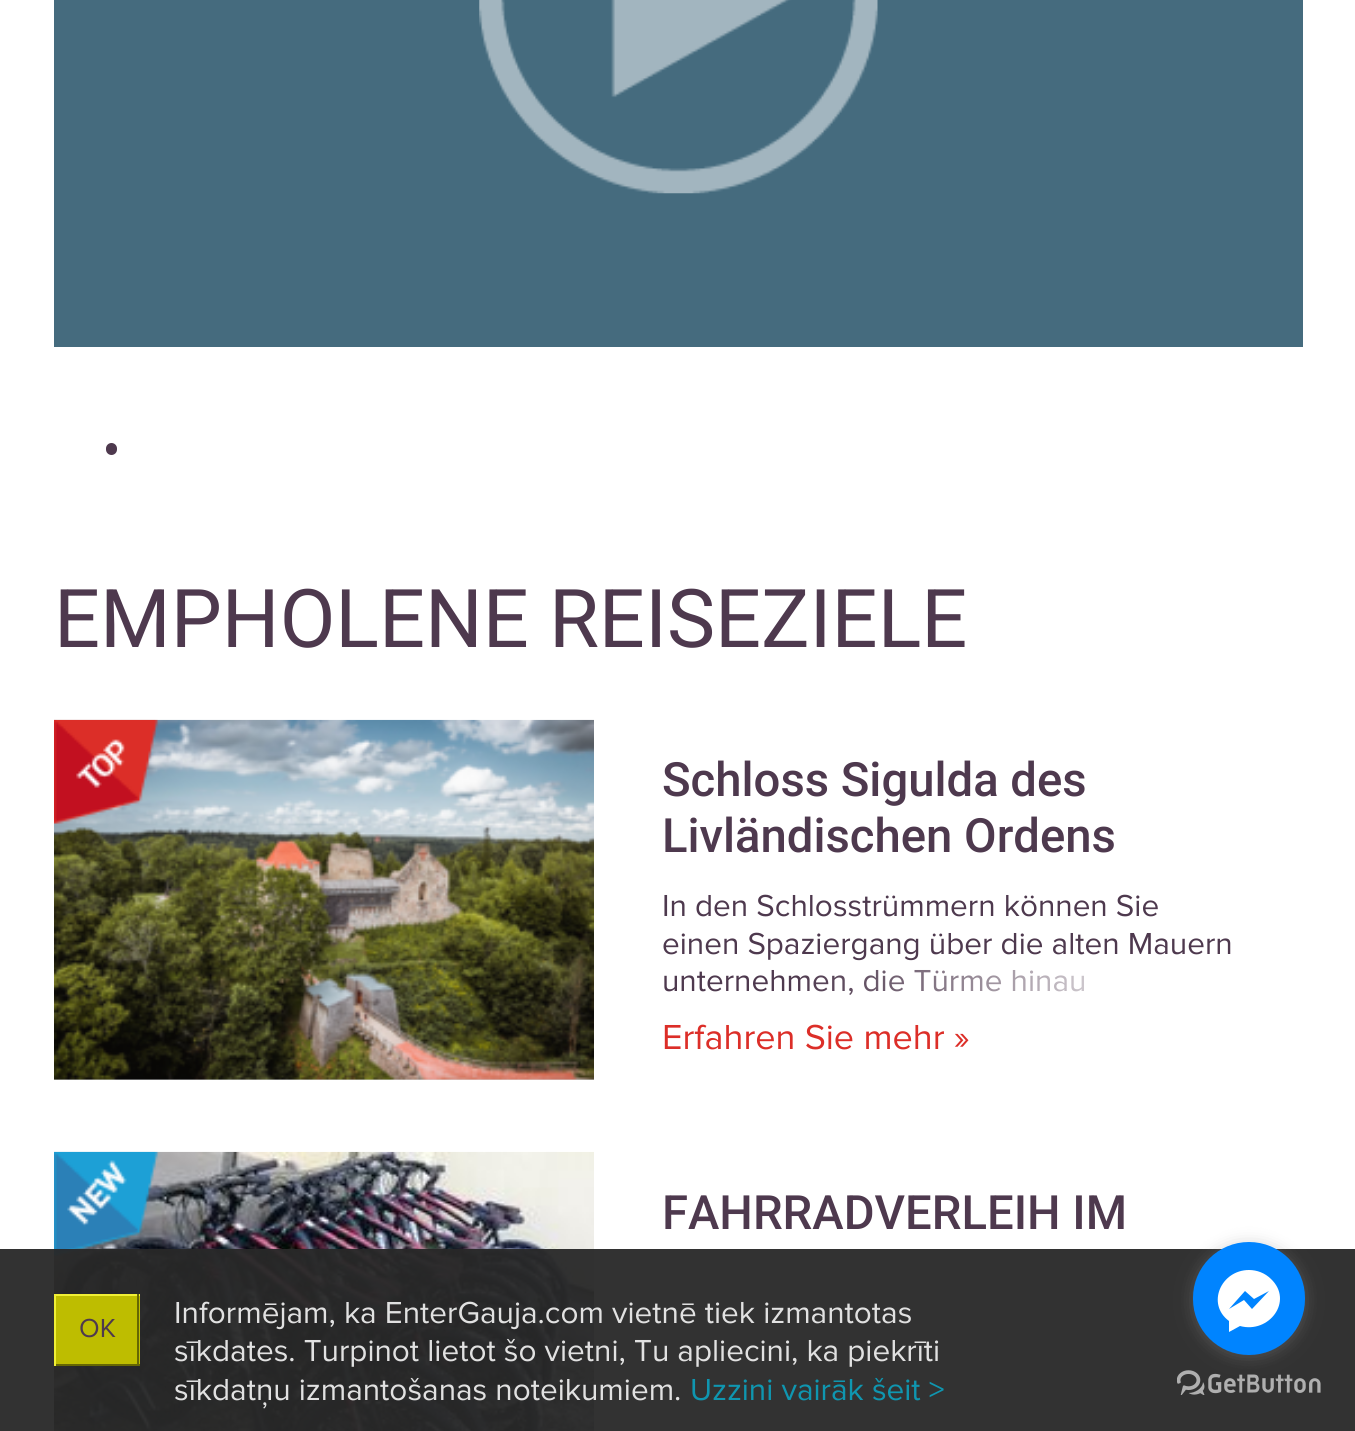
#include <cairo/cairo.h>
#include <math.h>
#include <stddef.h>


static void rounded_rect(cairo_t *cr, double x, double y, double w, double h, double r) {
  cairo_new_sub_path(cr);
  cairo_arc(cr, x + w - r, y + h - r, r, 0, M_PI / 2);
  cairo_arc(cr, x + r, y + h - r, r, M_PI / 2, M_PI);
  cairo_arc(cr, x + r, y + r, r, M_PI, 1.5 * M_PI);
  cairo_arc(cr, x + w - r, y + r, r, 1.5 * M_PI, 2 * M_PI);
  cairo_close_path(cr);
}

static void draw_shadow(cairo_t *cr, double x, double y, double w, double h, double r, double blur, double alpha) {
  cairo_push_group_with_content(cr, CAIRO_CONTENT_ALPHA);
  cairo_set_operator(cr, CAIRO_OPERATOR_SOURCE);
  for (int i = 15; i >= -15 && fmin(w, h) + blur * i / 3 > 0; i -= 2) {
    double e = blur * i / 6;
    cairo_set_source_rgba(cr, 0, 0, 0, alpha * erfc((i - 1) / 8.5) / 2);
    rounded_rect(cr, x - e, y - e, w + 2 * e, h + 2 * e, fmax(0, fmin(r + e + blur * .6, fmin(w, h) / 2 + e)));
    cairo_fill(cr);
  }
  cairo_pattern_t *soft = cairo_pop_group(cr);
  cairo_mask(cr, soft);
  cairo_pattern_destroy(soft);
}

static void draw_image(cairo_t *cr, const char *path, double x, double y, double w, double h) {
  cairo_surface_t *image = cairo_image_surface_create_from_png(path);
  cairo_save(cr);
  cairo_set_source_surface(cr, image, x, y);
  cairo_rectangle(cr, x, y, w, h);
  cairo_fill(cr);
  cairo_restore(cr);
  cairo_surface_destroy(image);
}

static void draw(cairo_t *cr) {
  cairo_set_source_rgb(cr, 1, 1, 1);
  cairo_paint(cr);
  cairo_set_source_rgb(cr, 69 / 255.0, 107 / 255.0, 126 / 255.0);
  cairo_rectangle(cr, 54, 0, 1249, 347);
  cairo_fill(cr);
  draw_image(cr, "images/1.png", 479, 0, 399, 194);
  cairo_set_source_rgb(cr, 78 / 255.0, 57 / 255.0, 78 / 255.0);
  rounded_rect(cr, 106, 443, 11, 12, 5.5);
  cairo_fill(cr);
  cairo_set_source_rgb(cr, 214 / 255.0, 215 / 255.0, 218 / 255.0);
  cairo_rectangle(cr, 54, 1079, 540, 1);
  cairo_fill(cr);
  draw_image(cr, "images/2.png", 54, 719, 540, 361);
  draw_image(cr, "images/3.png", 54, 719, 105, 105);
  draw_image(cr, "images/5.png", 54, 1151, 540, 280);
  draw_image(cr, "images/6.png", 54, 1151, 105, 105);
  cairo_set_source_rgba(cr, 40 / 255.0, 40 / 255.0, 40 / 255.0, 0.95);
  cairo_rectangle(cr, 0, 1249, 1355, 182);
  cairo_fill(cr);
  cairo_set_source_rgb(cr, 190 / 255.0, 189 / 255.0, 0);
  cairo_rectangle(cr, 56, 1296, 84, 68);
  cairo_fill(cr);
  cairo_set_source_rgb(cr, 240 / 255.0, 239 / 255.0, 53 / 255.0);
  cairo_rectangle(cr, 54, 1294, 86, 2);
  cairo_fill(cr);
  cairo_set_source_rgb(cr, 102 / 255.0, 103 / 255.0, 3 / 255.0);
  cairo_rectangle(cr, 137, 1294, 2, 72);
  cairo_fill(cr);
  cairo_rectangle(cr, 54, 1364, 86, 2);
  cairo_fill(cr);
  cairo_set_source_rgb(cr, 240 / 255.0, 239 / 255.0, 53 / 255.0);
  cairo_rectangle(cr, 54, 1294, 2, 72);
  cairo_fill(cr);
  draw_image(cr, "images/7.png", 1177, 1370, 144, 25);
  cairo_set_source_rgb(cr, 136 / 255.0, 136 / 255.0, 136 / 255.0);
  draw_shadow(cr, 1193, 1244, 112, 113, 56, 8, 0.4);
  cairo_set_source_rgb(cr, 0, 132 / 255.0, 1);
  rounded_rect(cr, 1193, 1242, 112, 113, 56);
  cairo_fill(cr);
  cairo_set_source_rgb(cr, 1, 1, 1);
  cairo_new_path(cr);
  cairo_move_to(cr, 1249, 1270);
  cairo_curve_to(cr, 1221, 1270, 1206, 1304, 1229, 1321);
  cairo_line_to(cr, 1229, 1332);
  cairo_line_to(cr, 1240, 1326);
  cairo_curve_to(cr, 1269, 1334, 1294, 1301, 1271, 1279);
  cairo_curve_to(cr, 1265, 1273, 1257, 1270, 1249, 1270);
  cairo_close_path(cr);
  cairo_move_to(cr, 1252, 1309);
  cairo_line_to(cr, 1244, 1300);
  cairo_line_to(cr, 1229, 1309);
  cairo_line_to(cr, 1245, 1291);
  cairo_line_to(cr, 1254, 1299);
  cairo_line_to(cr, 1269, 1291);
  cairo_close_path(cr);
  cairo_fill(cr);
  cairo_select_font_face(cr, "Roboto", CAIRO_FONT_SLANT_NORMAL, CAIRO_FONT_WEIGHT_NORMAL);
  cairo_set_font_size(cr, 81);
  cairo_set_source_rgb(cr, 78 / 255.0, 57 / 255.0, 78 / 255.0);
  cairo_move_to(cr, 54, 647);
  cairo_show_text(cr, "EMPHOLENE REISEZIELE");
  cairo_select_font_face(cr, "Roboto Medium", CAIRO_FONT_SLANT_NORMAL, CAIRO_FONT_WEIGHT_NORMAL);
  cairo_set_font_size(cr, 47.25);
  cairo_move_to(cr, 662, 796);
  cairo_show_text(cr, "Schloss Sigulda des");
  cairo_move_to(cr, 662, 852);
  cairo_show_text(cr, "Livländischen Ordens");
  cairo_select_font_face(cr, "Proxima Nova", CAIRO_FONT_SLANT_NORMAL, CAIRO_FONT_WEIGHT_NORMAL);
  cairo_set_font_size(cr, 31.5);
  cairo_move_to(cr, 662, 916);
  cairo_show_text(cr, "In den Schlosstrümmern können Sie");
  cairo_move_to(cr, 662, 954);
  cairo_show_text(cr, "einen Spaziergang über die alten Mauern");
  cairo_move_to(cr, 662, 991);
  cairo_show_text(cr, "unternehmen, die Türme hinau");
  draw_image(cr, "images/4.png", 800, 969, 403, 29);
  cairo_set_font_size(cr, 36);
  cairo_set_source_rgb(cr, 220 / 255.0, 46 / 255.0, 40 / 255.0);
  cairo_move_to(cr, 662, 1049);
  cairo_show_text(cr, "Erfahren Sie mehr »");
  cairo_select_font_face(cr, "Roboto Medium", CAIRO_FONT_SLANT_NORMAL, CAIRO_FONT_WEIGHT_NORMAL);
  cairo_set_font_size(cr, 47.25);
  cairo_set_source_rgb(cr, 78 / 255.0, 57 / 255.0, 78 / 255.0);
  cairo_move_to(cr, 662, 1229);
  cairo_show_text(cr, "FAHRRADVERLEIH IM");
  cairo_select_font_face(cr, "Proxima Nova", CAIRO_FONT_SLANT_NORMAL, CAIRO_FONT_WEIGHT_NORMAL);
  cairo_set_font_size(cr, 27);
  cairo_move_to(cr, 79, 1337);
  cairo_show_text(cr, "OK");
  cairo_set_font_size(cr, 31.5);
  cairo_set_source_rgb(cr, 225 / 255.0, 225 / 255.0, 225 / 255.0);
  cairo_move_to(cr, 174, 1323);
  cairo_show_text(cr, "Informējam, ka EnterGauja.com vietnē tiek izmantotas");
  cairo_move_to(cr, 174, 1361);
  cairo_show_text(cr, "sīkdates. Turpinot lietot šo vietni, Tu apliecini, ka piekrīti");
  cairo_move_to(cr, 174, 1400);
  cairo_show_text(cr, "sīkdatņu izmantošanas noteikumiem.");
  cairo_set_source_rgb(cr, 15 / 255.0, 150 / 255.0, 176 / 255.0);
  cairo_move_to(cr, 690, 1400);
  cairo_show_text(cr, "Uzzini vairāk šeit >");
}

int main(void) {
  cairo_surface_t *surface = cairo_image_surface_create(CAIRO_FORMAT_RGB24, 1355, 1431);
  cairo_t *cr = cairo_create(surface);
  cairo_font_options_t *options = cairo_font_options_create();
  cairo_font_options_set_hint_metrics(options, CAIRO_HINT_METRICS_OFF);
  cairo_font_options_set_hint_style(options, CAIRO_HINT_STYLE_NONE);
  cairo_set_font_options(cr, options);
  cairo_set_miter_limit(cr, 4);
  draw(cr);
  cairo_surface_write_to_png(surface, "out.png");
  cairo_font_options_destroy(options);
  cairo_destroy(cr);
  cairo_surface_destroy(surface);
  return 0;
}
